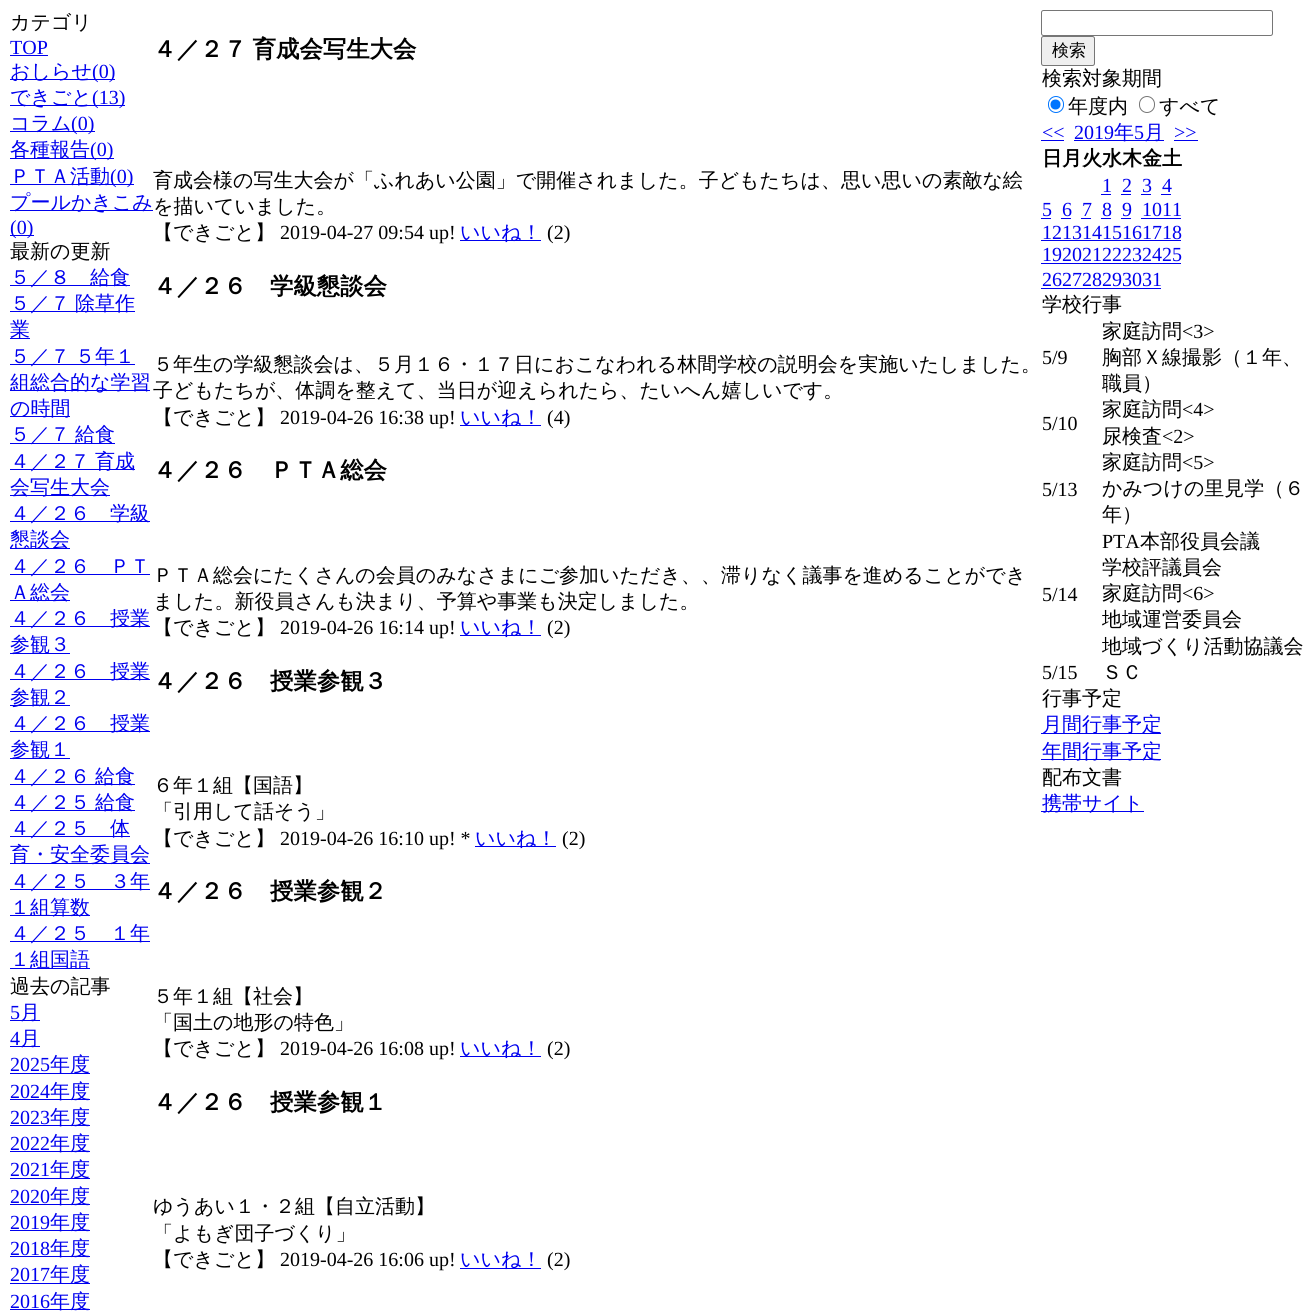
#include <cairo/cairo.h>
#include <math.h>
#include <stddef.h>


static void draw_spaced(cairo_t *cr, double x, double y, const char *s, double letter, double word) {
  cairo_move_to(cr, x, y);
  while (*s) {
    char ch[5] = {0};
    int n = 0;
    do ch[n++] = *s++; while ((*s & 0xC0) == 0x80);
    cairo_show_text(cr, ch);
    cairo_rel_move_to(cr, letter + word * (*ch == ' '), 0);
  }
}

static void rounded_rect(cairo_t *cr, double x, double y, double w, double h, double r) {
  cairo_new_sub_path(cr);
  cairo_arc(cr, x + w - r, y + h - r, r, 0, M_PI / 2);
  cairo_arc(cr, x + r, y + h - r, r, M_PI / 2, M_PI);
  cairo_arc(cr, x + r, y + r, r, M_PI, 1.5 * M_PI);
  cairo_arc(cr, x + w - r, y + r, r, 1.5 * M_PI, 2 * M_PI);
  cairo_close_path(cr);
}

static void draw(cairo_t *cr) {
  cairo_set_source_rgb(cr, 1, 1, 1);
  cairo_paint(cr);
  cairo_set_source_rgb(cr, 0, 0, 238 / 255.0);
  cairo_rectangle(cr, 10, 55, 38, 1);
  cairo_fill(cr);
  cairo_rectangle(cr, 10, 79, 105, 1);
  cairo_fill(cr);
  cairo_rectangle(cr, 10, 105, 115, 1);
  cairo_fill(cr);
  cairo_rectangle(cr, 10, 131, 85, 1);
  cairo_fill(cr);
  cairo_rectangle(cr, 10, 158, 104, 1);
  cairo_fill(cr);
  cairo_rectangle(cr, 10, 184, 124, 1);
  cairo_fill(cr);
  cairo_rectangle(cr, 10, 210, 143, 1);
  cairo_fill(cr);
  cairo_rectangle(cr, 10, 235, 24, 1);
  cairo_fill(cr);
  cairo_rectangle(cr, 10, 285, 120, 1);
  cairo_fill(cr);
  cairo_rectangle(cr, 10, 311, 125, 1);
  cairo_fill(cr);
  cairo_rectangle(cr, 10, 338, 20, 1);
  cairo_fill(cr);
  cairo_rectangle(cr, 10, 364, 125, 1);
  cairo_fill(cr);
  cairo_rectangle(cr, 10, 390, 140, 1);
  cairo_fill(cr);
  cairo_rectangle(cr, 10, 416, 60, 1);
  cairo_fill(cr);
  cairo_rectangle(cr, 10, 443, 105, 1);
  cairo_fill(cr);
  cairo_rectangle(cr, 10, 469, 125, 1);
  cairo_fill(cr);
  cairo_rectangle(cr, 10, 495, 100, 1);
  cairo_fill(cr);
  cairo_rectangle(cr, 10, 521, 140, 1);
  cairo_fill(cr);
  cairo_rectangle(cr, 10, 548, 60, 1);
  cairo_fill(cr);
  cairo_rectangle(cr, 10, 574, 140, 1);
  cairo_fill(cr);
  cairo_rectangle(cr, 10, 600, 60, 1);
  cairo_fill(cr);
  cairo_rectangle(cr, 10, 626, 140, 1);
  cairo_fill(cr);
  cairo_rectangle(cr, 10, 653, 60, 1);
  cairo_fill(cr);
  cairo_rectangle(cr, 10, 679, 140, 1);
  cairo_fill(cr);
  cairo_rectangle(cr, 10, 705, 60, 1);
  cairo_fill(cr);
  cairo_rectangle(cr, 10, 731, 140, 1);
  cairo_fill(cr);
  cairo_rectangle(cr, 10, 758, 60, 1);
  cairo_fill(cr);
  cairo_rectangle(cr, 10, 784, 125, 1);
  cairo_fill(cr);
  cairo_rectangle(cr, 10, 810, 125, 1);
  cairo_fill(cr);
  cairo_rectangle(cr, 10, 836, 120, 1);
  cairo_fill(cr);
  cairo_rectangle(cr, 10, 863, 140, 1);
  cairo_fill(cr);
  cairo_rectangle(cr, 10, 889, 140, 1);
  cairo_fill(cr);
  cairo_rectangle(cr, 10, 915, 80, 1);
  cairo_fill(cr);
  cairo_rectangle(cr, 10, 941, 140, 1);
  cairo_fill(cr);
  cairo_rectangle(cr, 10, 968, 80, 1);
  cairo_fill(cr);
  cairo_rectangle(cr, 10, 1020, 30, 1);
  cairo_fill(cr);
  cairo_rectangle(cr, 10, 1046, 30, 1);
  cairo_fill(cr);
  cairo_rectangle(cr, 10, 1073, 80, 1);
  cairo_fill(cr);
  cairo_rectangle(cr, 10, 1099, 80, 1);
  cairo_fill(cr);
  cairo_rectangle(cr, 10, 1125, 80, 1);
  cairo_fill(cr);
  cairo_rectangle(cr, 10, 1151, 80, 1);
  cairo_fill(cr);
  cairo_rectangle(cr, 10, 1178, 80, 1);
  cairo_fill(cr);
  cairo_rectangle(cr, 10, 1204, 80, 1);
  cairo_fill(cr);
  cairo_rectangle(cr, 10, 1230, 80, 1);
  cairo_fill(cr);
  cairo_rectangle(cr, 10, 1256, 80, 1);
  cairo_fill(cr);
  cairo_rectangle(cr, 10, 1283, 80, 1);
  cairo_fill(cr);
  cairo_rectangle(cr, 10, 1309, 80, 1);
  cairo_fill(cr);
  cairo_rectangle(cr, 460, 240, 81, 1);
  cairo_fill(cr);
  cairo_rectangle(cr, 460, 425, 81, 1);
  cairo_fill(cr);
  cairo_rectangle(cr, 460, 635, 81, 1);
  cairo_fill(cr);
  cairo_rectangle(cr, 475, 846, 81, 1);
  cairo_fill(cr);
  cairo_rectangle(cr, 460, 1056, 81, 1);
  cairo_fill(cr);
  cairo_rectangle(cr, 460, 1268, 81, 1);
  cairo_fill(cr);
  rounded_rect(cr, 1041.5, 10.5, 231, 25, 2);
  cairo_set_source_rgb(cr, 118 / 255.0, 118 / 255.0, 118 / 255.0);
  cairo_set_line_width(cr, 1);
  cairo_stroke(cr);
  cairo_set_source_rgb(cr, 239 / 255.0, 239 / 255.0, 239 / 255.0);
  rounded_rect(cr, 1041.5, 36.5, 53, 29, 2);
  cairo_fill_preserve(cr);
  cairo_set_source_rgb(cr, 118 / 255.0, 118 / 255.0, 118 / 255.0);
  cairo_stroke(cr);
  rounded_rect(cr, 1048.5, 96.5, 15, 16, 7.5);
  cairo_set_source_rgb(cr, 0, 117 / 255.0, 1);
  cairo_stroke(cr);
  cairo_arc(cr, 1055.5, 104.5, 5, 0, 2 * M_PI);
  cairo_fill(cr);
  rounded_rect(cr, 1139.5, 96.5, 15, 16, 7.5);
  cairo_set_source_rgb(cr, 118 / 255.0, 118 / 255.0, 118 / 255.0);
  cairo_stroke(cr);
  cairo_set_source_rgb(cr, 0, 0, 238 / 255.0);
  cairo_rectangle(cr, 1041, 140, 23, 1);
  cairo_fill(cr);
  cairo_rectangle(cr, 1074, 140, 90, 1);
  cairo_fill(cr);
  cairo_rectangle(cr, 1174, 140, 24, 1);
  cairo_fill(cr);
  cairo_rectangle(cr, 1101, 194, 10, 1);
  cairo_fill(cr);
  cairo_rectangle(cr, 1121, 194, 10, 1);
  cairo_fill(cr);
  cairo_rectangle(cr, 1141, 194, 10, 1);
  cairo_fill(cr);
  cairo_rectangle(cr, 1161, 194, 10, 1);
  cairo_fill(cr);
  cairo_rectangle(cr, 1041, 218, 10, 1);
  cairo_fill(cr);
  cairo_rectangle(cr, 1061, 218, 10, 1);
  cairo_fill(cr);
  cairo_rectangle(cr, 1081, 218, 10, 1);
  cairo_fill(cr);
  cairo_rectangle(cr, 1101, 218, 10, 1);
  cairo_fill(cr);
  cairo_rectangle(cr, 1121, 218, 10, 1);
  cairo_fill(cr);
  cairo_rectangle(cr, 1141, 218, 40, 1);
  cairo_fill(cr);
  cairo_rectangle(cr, 1041, 240, 140, 1);
  cairo_fill(cr);
  cairo_rectangle(cr, 1041, 263, 140, 1);
  cairo_fill(cr);
  cairo_rectangle(cr, 1041, 288, 120, 1);
  cairo_fill(cr);
  cairo_rectangle(cr, 1041, 733, 120, 1);
  cairo_fill(cr);
  cairo_rectangle(cr, 1041, 759, 120, 1);
  cairo_fill(cr);
  cairo_rectangle(cr, 1041, 811, 103, 1);
  cairo_fill(cr);
  cairo_select_font_face(cr, "WenQuanYi Zen Hei Medium", CAIRO_FONT_SLANT_NORMAL, CAIRO_FONT_WEIGHT_NORMAL);
  cairo_set_font_size(cr, 20);
  cairo_set_source_rgb(cr, 0, 0, 0);
  cairo_move_to(cr, 10, 29);
  cairo_show_text(cr, "カテゴリ");
  cairo_select_font_face(cr, "Liberation Serif", CAIRO_FONT_SLANT_NORMAL, CAIRO_FONT_WEIGHT_NORMAL);
  cairo_set_source_rgb(cr, 0, 0, 238 / 255.0);
  cairo_move_to(cr, 10, 54);
  cairo_show_text(cr, "TOP");
  cairo_select_font_face(cr, "WenQuanYi Zen Hei Medium", CAIRO_FONT_SLANT_NORMAL, CAIRO_FONT_WEIGHT_NORMAL);
  cairo_move_to(cr, 10, 78);
  cairo_show_text(cr, "おしらせ");
  cairo_select_font_face(cr, "Liberation Serif", CAIRO_FONT_SLANT_NORMAL, CAIRO_FONT_WEIGHT_NORMAL);
  cairo_move_to(cr, 92, 78);
  cairo_show_text(cr, "(0)");
  cairo_select_font_face(cr, "WenQuanYi Zen Hei Medium", CAIRO_FONT_SLANT_NORMAL, CAIRO_FONT_WEIGHT_NORMAL);
  cairo_move_to(cr, 10, 104);
  cairo_show_text(cr, "できごと");
  cairo_select_font_face(cr, "Liberation Serif", CAIRO_FONT_SLANT_NORMAL, CAIRO_FONT_WEIGHT_NORMAL);
  cairo_move_to(cr, 92, 104);
  cairo_show_text(cr, "(13)");
  cairo_select_font_face(cr, "WenQuanYi Zen Hei Medium", CAIRO_FONT_SLANT_NORMAL, CAIRO_FONT_WEIGHT_NORMAL);
  cairo_move_to(cr, 10, 130);
  cairo_show_text(cr, "コラム");
  cairo_select_font_face(cr, "Liberation Serif", CAIRO_FONT_SLANT_NORMAL, CAIRO_FONT_WEIGHT_NORMAL);
  cairo_move_to(cr, 71, 130);
  cairo_show_text(cr, "(0)");
  cairo_select_font_face(cr, "WenQuanYi Zen Hei Medium", CAIRO_FONT_SLANT_NORMAL, CAIRO_FONT_WEIGHT_NORMAL);
  cairo_move_to(cr, 10, 156);
  cairo_show_text(cr, "各種報告");
  cairo_select_font_face(cr, "Liberation Serif", CAIRO_FONT_SLANT_NORMAL, CAIRO_FONT_WEIGHT_NORMAL);
  cairo_move_to(cr, 90, 156);
  cairo_show_text(cr, "(0)");
  cairo_select_font_face(cr, "WenQuanYi Zen Hei Medium", CAIRO_FONT_SLANT_NORMAL, CAIRO_FONT_WEIGHT_NORMAL);
  cairo_move_to(cr, 10, 183);
  cairo_show_text(cr, "ＰＴＡ活動");
  cairo_select_font_face(cr, "Liberation Serif", CAIRO_FONT_SLANT_NORMAL, CAIRO_FONT_WEIGHT_NORMAL);
  cairo_move_to(cr, 110, 183);
  cairo_show_text(cr, "(0)");
  cairo_select_font_face(cr, "WenQuanYi Zen Hei Medium", CAIRO_FONT_SLANT_NORMAL, CAIRO_FONT_WEIGHT_NORMAL);
  cairo_move_to(cr, 10, 209);
  cairo_show_text(cr, "プールかきこみ");
  cairo_select_font_face(cr, "Liberation Serif", CAIRO_FONT_SLANT_NORMAL, CAIRO_FONT_WEIGHT_NORMAL);
  cairo_move_to(cr, 10, 234);
  cairo_show_text(cr, "(0)");
  cairo_select_font_face(cr, "WenQuanYi Zen Hei Medium", CAIRO_FONT_SLANT_NORMAL, CAIRO_FONT_WEIGHT_NORMAL);
  cairo_set_source_rgb(cr, 0, 0, 0);
  cairo_move_to(cr, 10, 258);
  cairo_show_text(cr, "最新の更新");
  cairo_set_source_rgb(cr, 0, 0, 238 / 255.0);
  cairo_move_to(cr, 10, 284);
  cairo_show_text(cr, "５／８　給食");
  draw_spaced(cr, 10, 310, "５／７ 除草作", 0, -1);
  cairo_move_to(cr, 10, 336);
  cairo_show_text(cr, "業");
  draw_spaced(cr, 10, 363, "５／７ ５年１", 0, -1);
  cairo_move_to(cr, 10, 389);
  cairo_show_text(cr, "組総合的な学習");
  cairo_move_to(cr, 10, 415);
  cairo_show_text(cr, "の時間");
  draw_spaced(cr, 10, 441, "５／７ 給食", 0, -1);
  draw_spaced(cr, 10, 468, "４／２７ 育成", 0, -1);
  cairo_move_to(cr, 10, 494);
  cairo_show_text(cr, "会写生大会");
  cairo_move_to(cr, 10, 520);
  cairo_show_text(cr, "４／２６　学級");
  cairo_move_to(cr, 10, 546);
  cairo_show_text(cr, "懇談会");
  cairo_move_to(cr, 10, 573);
  cairo_show_text(cr, "４／２６　ＰＴ");
  cairo_move_to(cr, 10, 599);
  cairo_show_text(cr, "Ａ総会");
  cairo_move_to(cr, 10, 625);
  cairo_show_text(cr, "４／２６　授業");
  cairo_move_to(cr, 10, 651);
  cairo_show_text(cr, "参観３");
  cairo_move_to(cr, 10, 678);
  cairo_show_text(cr, "４／２６　授業");
  cairo_move_to(cr, 10, 704);
  cairo_show_text(cr, "参観２");
  cairo_move_to(cr, 10, 730);
  cairo_show_text(cr, "４／２６　授業");
  cairo_move_to(cr, 10, 756);
  cairo_show_text(cr, "参観１");
  draw_spaced(cr, 10, 783, "４／２６ 給食", 0, -1);
  draw_spaced(cr, 10, 809, "４／２５ 給食", 0, -1);
  cairo_move_to(cr, 10, 835);
  cairo_show_text(cr, "４／２５　体");
  cairo_move_to(cr, 10, 861);
  cairo_show_text(cr, "育・安全委員会");
  cairo_move_to(cr, 10, 888);
  cairo_show_text(cr, "４／２５　３年");
  cairo_move_to(cr, 10, 914);
  cairo_show_text(cr, "１組算数");
  cairo_move_to(cr, 10, 940);
  cairo_show_text(cr, "４／２５　１年");
  cairo_move_to(cr, 10, 966);
  cairo_show_text(cr, "１組国語");
  cairo_set_source_rgb(cr, 0, 0, 0);
  cairo_move_to(cr, 10, 993);
  cairo_show_text(cr, "過去の記事");
  cairo_select_font_face(cr, "Liberation Serif", CAIRO_FONT_SLANT_NORMAL, CAIRO_FONT_WEIGHT_NORMAL);
  cairo_set_source_rgb(cr, 0, 0, 238 / 255.0);
  cairo_move_to(cr, 10, 1019);
  cairo_show_text(cr, "5");
  cairo_select_font_face(cr, "WenQuanYi Zen Hei Medium", CAIRO_FONT_SLANT_NORMAL, CAIRO_FONT_WEIGHT_NORMAL);
  cairo_move_to(cr, 20, 1019);
  cairo_show_text(cr, "月");
  cairo_select_font_face(cr, "Liberation Serif", CAIRO_FONT_SLANT_NORMAL, CAIRO_FONT_WEIGHT_NORMAL);
  cairo_move_to(cr, 10, 1045);
  cairo_show_text(cr, "4");
  cairo_select_font_face(cr, "WenQuanYi Zen Hei Medium", CAIRO_FONT_SLANT_NORMAL, CAIRO_FONT_WEIGHT_NORMAL);
  cairo_move_to(cr, 20, 1045);
  cairo_show_text(cr, "月");
  cairo_select_font_face(cr, "Liberation Serif", CAIRO_FONT_SLANT_NORMAL, CAIRO_FONT_WEIGHT_NORMAL);
  cairo_move_to(cr, 10, 1071);
  cairo_show_text(cr, "2025");
  cairo_select_font_face(cr, "WenQuanYi Zen Hei Medium", CAIRO_FONT_SLANT_NORMAL, CAIRO_FONT_WEIGHT_NORMAL);
  cairo_move_to(cr, 50, 1071);
  cairo_show_text(cr, "年度");
  cairo_select_font_face(cr, "Liberation Serif", CAIRO_FONT_SLANT_NORMAL, CAIRO_FONT_WEIGHT_NORMAL);
  cairo_move_to(cr, 10, 1098);
  cairo_show_text(cr, "2024");
  cairo_select_font_face(cr, "WenQuanYi Zen Hei Medium", CAIRO_FONT_SLANT_NORMAL, CAIRO_FONT_WEIGHT_NORMAL);
  cairo_move_to(cr, 50, 1098);
  cairo_show_text(cr, "年度");
  cairo_select_font_face(cr, "Liberation Serif", CAIRO_FONT_SLANT_NORMAL, CAIRO_FONT_WEIGHT_NORMAL);
  cairo_move_to(cr, 10, 1124);
  cairo_show_text(cr, "2023");
  cairo_select_font_face(cr, "WenQuanYi Zen Hei Medium", CAIRO_FONT_SLANT_NORMAL, CAIRO_FONT_WEIGHT_NORMAL);
  cairo_move_to(cr, 50, 1124);
  cairo_show_text(cr, "年度");
  cairo_select_font_face(cr, "Liberation Serif", CAIRO_FONT_SLANT_NORMAL, CAIRO_FONT_WEIGHT_NORMAL);
  cairo_move_to(cr, 10, 1150);
  cairo_show_text(cr, "2022");
  cairo_select_font_face(cr, "WenQuanYi Zen Hei Medium", CAIRO_FONT_SLANT_NORMAL, CAIRO_FONT_WEIGHT_NORMAL);
  cairo_move_to(cr, 50, 1150);
  cairo_show_text(cr, "年度");
  cairo_select_font_face(cr, "Liberation Serif", CAIRO_FONT_SLANT_NORMAL, CAIRO_FONT_WEIGHT_NORMAL);
  cairo_move_to(cr, 10, 1176);
  cairo_show_text(cr, "2021");
  cairo_select_font_face(cr, "WenQuanYi Zen Hei Medium", CAIRO_FONT_SLANT_NORMAL, CAIRO_FONT_WEIGHT_NORMAL);
  cairo_move_to(cr, 50, 1176);
  cairo_show_text(cr, "年度");
  cairo_select_font_face(cr, "Liberation Serif", CAIRO_FONT_SLANT_NORMAL, CAIRO_FONT_WEIGHT_NORMAL);
  cairo_move_to(cr, 10, 1203);
  cairo_show_text(cr, "2020");
  cairo_select_font_face(cr, "WenQuanYi Zen Hei Medium", CAIRO_FONT_SLANT_NORMAL, CAIRO_FONT_WEIGHT_NORMAL);
  cairo_move_to(cr, 50, 1203);
  cairo_show_text(cr, "年度");
  cairo_select_font_face(cr, "Liberation Serif", CAIRO_FONT_SLANT_NORMAL, CAIRO_FONT_WEIGHT_NORMAL);
  cairo_move_to(cr, 10, 1229);
  cairo_show_text(cr, "2019");
  cairo_select_font_face(cr, "WenQuanYi Zen Hei Medium", CAIRO_FONT_SLANT_NORMAL, CAIRO_FONT_WEIGHT_NORMAL);
  cairo_move_to(cr, 50, 1229);
  cairo_show_text(cr, "年度");
  cairo_select_font_face(cr, "Liberation Serif", CAIRO_FONT_SLANT_NORMAL, CAIRO_FONT_WEIGHT_NORMAL);
  cairo_move_to(cr, 10, 1255);
  cairo_show_text(cr, "2018");
  cairo_select_font_face(cr, "WenQuanYi Zen Hei Medium", CAIRO_FONT_SLANT_NORMAL, CAIRO_FONT_WEIGHT_NORMAL);
  cairo_move_to(cr, 50, 1255);
  cairo_show_text(cr, "年度");
  cairo_select_font_face(cr, "Liberation Serif", CAIRO_FONT_SLANT_NORMAL, CAIRO_FONT_WEIGHT_NORMAL);
  cairo_move_to(cr, 10, 1281);
  cairo_show_text(cr, "2017");
  cairo_select_font_face(cr, "WenQuanYi Zen Hei Medium", CAIRO_FONT_SLANT_NORMAL, CAIRO_FONT_WEIGHT_NORMAL);
  cairo_move_to(cr, 50, 1281);
  cairo_show_text(cr, "年度");
  cairo_select_font_face(cr, "Liberation Serif", CAIRO_FONT_SLANT_NORMAL, CAIRO_FONT_WEIGHT_NORMAL);
  cairo_move_to(cr, 10, 1308);
  cairo_show_text(cr, "2016");
  cairo_select_font_face(cr, "WenQuanYi Zen Hei Medium", CAIRO_FONT_SLANT_NORMAL, CAIRO_FONT_WEIGHT_NORMAL);
  cairo_move_to(cr, 50, 1308);
  cairo_show_text(cr, "年度");
  cairo_select_font_face(cr, "WenQuanYi Zen Hei", CAIRO_FONT_SLANT_NORMAL, CAIRO_FONT_WEIGHT_BOLD);
  cairo_set_font_size(cr, 23.4);
  cairo_set_source_rgb(cr, 0, 0, 0);
  draw_spaced(cr, 153, 57, "４／２７ 育成会写生大会", 0, -1);
  cairo_select_font_face(cr, "WenQuanYi Zen Hei Medium", CAIRO_FONT_SLANT_NORMAL, CAIRO_FONT_WEIGHT_NORMAL);
  cairo_set_font_size(cr, 20);
  cairo_move_to(cr, 153, 187);
  cairo_show_text(cr, "育成会様の写生大会が「ふれあい公園」で開催されました。子どもたちは、思い思いの素敵な絵");
  cairo_move_to(cr, 153, 213);
  cairo_show_text(cr, "を描いていました。");
  cairo_move_to(cr, 153, 239);
  cairo_show_text(cr, "【できごと】");
  cairo_select_font_face(cr, "Liberation Serif", CAIRO_FONT_SLANT_NORMAL, CAIRO_FONT_WEIGHT_NORMAL);
  cairo_move_to(cr, 280, 239);
  cairo_show_text(cr, "2019-04-27 09:54 up!");
  cairo_select_font_face(cr, "WenQuanYi Zen Hei Medium", CAIRO_FONT_SLANT_NORMAL, CAIRO_FONT_WEIGHT_NORMAL);
  cairo_set_source_rgb(cr, 0, 0, 238 / 255.0);
  cairo_move_to(cr, 460, 239);
  cairo_show_text(cr, "いいね！");
  cairo_select_font_face(cr, "Liberation Serif", CAIRO_FONT_SLANT_NORMAL, CAIRO_FONT_WEIGHT_NORMAL);
  cairo_set_source_rgb(cr, 0, 0, 0);
  cairo_move_to(cr, 547, 239);
  cairo_show_text(cr, "(2)");
  cairo_select_font_face(cr, "WenQuanYi Zen Hei", CAIRO_FONT_SLANT_NORMAL, CAIRO_FONT_WEIGHT_BOLD);
  cairo_set_font_size(cr, 23.4);
  cairo_move_to(cr, 153, 294);
  cairo_show_text(cr, "４／２６　学級懇談会");
  cairo_select_font_face(cr, "WenQuanYi Zen Hei Medium", CAIRO_FONT_SLANT_NORMAL, CAIRO_FONT_WEIGHT_NORMAL);
  cairo_set_font_size(cr, 20);
  cairo_move_to(cr, 153, 371);
  cairo_show_text(cr, "５年生の学級懇談会は、５月１６・１７日におこなわれる林間学校の説明会を実施いたしました。");
  cairo_move_to(cr, 153, 397);
  cairo_show_text(cr, "子どもたちが、体調を整えて、当日が迎えられたら、たいへん嬉しいです。");
  cairo_move_to(cr, 153, 424);
  cairo_show_text(cr, "【できごと】");
  cairo_select_font_face(cr, "Liberation Serif", CAIRO_FONT_SLANT_NORMAL, CAIRO_FONT_WEIGHT_NORMAL);
  cairo_move_to(cr, 280, 424);
  cairo_show_text(cr, "2019-04-26 16:38 up!");
  cairo_select_font_face(cr, "WenQuanYi Zen Hei Medium", CAIRO_FONT_SLANT_NORMAL, CAIRO_FONT_WEIGHT_NORMAL);
  cairo_set_source_rgb(cr, 0, 0, 238 / 255.0);
  cairo_move_to(cr, 460, 424);
  cairo_show_text(cr, "いいね！");
  cairo_select_font_face(cr, "Liberation Serif", CAIRO_FONT_SLANT_NORMAL, CAIRO_FONT_WEIGHT_NORMAL);
  cairo_set_source_rgb(cr, 0, 0, 0);
  cairo_move_to(cr, 547, 424);
  cairo_show_text(cr, "(4)");
  cairo_select_font_face(cr, "WenQuanYi Zen Hei", CAIRO_FONT_SLANT_NORMAL, CAIRO_FONT_WEIGHT_BOLD);
  cairo_set_font_size(cr, 23.4);
  cairo_move_to(cr, 153, 478);
  cairo_show_text(cr, "４／２６　ＰＴＡ総会");
  cairo_select_font_face(cr, "WenQuanYi Zen Hei Medium", CAIRO_FONT_SLANT_NORMAL, CAIRO_FONT_WEIGHT_NORMAL);
  cairo_set_font_size(cr, 20);
  cairo_move_to(cr, 153, 582);
  cairo_show_text(cr, "ＰＴＡ総会にたくさんの会員のみなさまにご参加いただき、、滞りなく議事を進めることができ");
  cairo_move_to(cr, 153, 608);
  cairo_show_text(cr, "ました。新役員さんも決まり、予算や事業も決定しました。");
  cairo_move_to(cr, 153, 634);
  cairo_show_text(cr, "【できごと】");
  cairo_select_font_face(cr, "Liberation Serif", CAIRO_FONT_SLANT_NORMAL, CAIRO_FONT_WEIGHT_NORMAL);
  cairo_move_to(cr, 280, 634);
  cairo_show_text(cr, "2019-04-26 16:14 up!");
  cairo_select_font_face(cr, "WenQuanYi Zen Hei Medium", CAIRO_FONT_SLANT_NORMAL, CAIRO_FONT_WEIGHT_NORMAL);
  cairo_set_source_rgb(cr, 0, 0, 238 / 255.0);
  cairo_move_to(cr, 460, 634);
  cairo_show_text(cr, "いいね！");
  cairo_select_font_face(cr, "Liberation Serif", CAIRO_FONT_SLANT_NORMAL, CAIRO_FONT_WEIGHT_NORMAL);
  cairo_set_source_rgb(cr, 0, 0, 0);
  cairo_move_to(cr, 547, 634);
  cairo_show_text(cr, "(2)");
  cairo_select_font_face(cr, "WenQuanYi Zen Hei", CAIRO_FONT_SLANT_NORMAL, CAIRO_FONT_WEIGHT_BOLD);
  cairo_set_font_size(cr, 23.4);
  cairo_move_to(cr, 153, 689);
  cairo_show_text(cr, "４／２６　授業参観３");
  cairo_select_font_face(cr, "WenQuanYi Zen Hei Medium", CAIRO_FONT_SLANT_NORMAL, CAIRO_FONT_WEIGHT_NORMAL);
  cairo_set_font_size(cr, 20);
  cairo_move_to(cr, 153, 792);
  cairo_show_text(cr, "６年１組【国語】");
  cairo_move_to(cr, 153, 818);
  cairo_show_text(cr, "「引用して話そう」");
  cairo_move_to(cr, 153, 845);
  cairo_show_text(cr, "【できごと】");
  cairo_select_font_face(cr, "Liberation Serif", CAIRO_FONT_SLANT_NORMAL, CAIRO_FONT_WEIGHT_NORMAL);
  cairo_move_to(cr, 280, 845);
  cairo_show_text(cr, "2019-04-26 16:10 up! *");
  cairo_select_font_face(cr, "WenQuanYi Zen Hei Medium", CAIRO_FONT_SLANT_NORMAL, CAIRO_FONT_WEIGHT_NORMAL);
  cairo_set_source_rgb(cr, 0, 0, 238 / 255.0);
  cairo_move_to(cr, 475, 845);
  cairo_show_text(cr, "いいね！");
  cairo_select_font_face(cr, "Liberation Serif", CAIRO_FONT_SLANT_NORMAL, CAIRO_FONT_WEIGHT_NORMAL);
  cairo_set_source_rgb(cr, 0, 0, 0);
  cairo_move_to(cr, 562, 845);
  cairo_show_text(cr, "(2)");
  cairo_select_font_face(cr, "WenQuanYi Zen Hei", CAIRO_FONT_SLANT_NORMAL, CAIRO_FONT_WEIGHT_BOLD);
  cairo_set_font_size(cr, 23.4);
  cairo_move_to(cr, 153, 899);
  cairo_show_text(cr, "４／２６　授業参観２");
  cairo_select_font_face(cr, "WenQuanYi Zen Hei Medium", CAIRO_FONT_SLANT_NORMAL, CAIRO_FONT_WEIGHT_NORMAL);
  cairo_set_font_size(cr, 20);
  cairo_move_to(cr, 153, 1003);
  cairo_show_text(cr, "５年１組【社会】");
  cairo_move_to(cr, 153, 1029);
  cairo_show_text(cr, "「国土の地形の特色」");
  cairo_move_to(cr, 153, 1055);
  cairo_show_text(cr, "【できごと】");
  cairo_select_font_face(cr, "Liberation Serif", CAIRO_FONT_SLANT_NORMAL, CAIRO_FONT_WEIGHT_NORMAL);
  cairo_move_to(cr, 280, 1055);
  cairo_show_text(cr, "2019-04-26 16:08 up!");
  cairo_select_font_face(cr, "WenQuanYi Zen Hei Medium", CAIRO_FONT_SLANT_NORMAL, CAIRO_FONT_WEIGHT_NORMAL);
  cairo_set_source_rgb(cr, 0, 0, 238 / 255.0);
  cairo_move_to(cr, 460, 1055);
  cairo_show_text(cr, "いいね！");
  cairo_select_font_face(cr, "Liberation Serif", CAIRO_FONT_SLANT_NORMAL, CAIRO_FONT_WEIGHT_NORMAL);
  cairo_set_source_rgb(cr, 0, 0, 0);
  cairo_move_to(cr, 547, 1055);
  cairo_show_text(cr, "(2)");
  cairo_select_font_face(cr, "WenQuanYi Zen Hei", CAIRO_FONT_SLANT_NORMAL, CAIRO_FONT_WEIGHT_BOLD);
  cairo_set_font_size(cr, 23.4);
  cairo_move_to(cr, 153, 1110);
  cairo_show_text(cr, "４／２６　授業参観１");
  cairo_select_font_face(cr, "WenQuanYi Zen Hei Medium", CAIRO_FONT_SLANT_NORMAL, CAIRO_FONT_WEIGHT_NORMAL);
  cairo_set_font_size(cr, 20);
  cairo_move_to(cr, 153, 1213);
  cairo_show_text(cr, "ゆうあい１・２組【自立活動】");
  cairo_move_to(cr, 153, 1240);
  cairo_show_text(cr, "「よもぎ団子づくり」");
  cairo_move_to(cr, 153, 1266);
  cairo_show_text(cr, "【できごと】");
  cairo_select_font_face(cr, "Liberation Serif", CAIRO_FONT_SLANT_NORMAL, CAIRO_FONT_WEIGHT_NORMAL);
  cairo_move_to(cr, 280, 1266);
  cairo_show_text(cr, "2019-04-26 16:06 up!");
  cairo_select_font_face(cr, "WenQuanYi Zen Hei Medium", CAIRO_FONT_SLANT_NORMAL, CAIRO_FONT_WEIGHT_NORMAL);
  cairo_set_source_rgb(cr, 0, 0, 238 / 255.0);
  cairo_move_to(cr, 460, 1266);
  cairo_show_text(cr, "いいね！");
  cairo_select_font_face(cr, "Liberation Serif", CAIRO_FONT_SLANT_NORMAL, CAIRO_FONT_WEIGHT_NORMAL);
  cairo_set_source_rgb(cr, 0, 0, 0);
  cairo_move_to(cr, 547, 1266);
  cairo_show_text(cr, "(2)");
  cairo_select_font_face(cr, "WenQuanYi Zen Hei Medium", CAIRO_FONT_SLANT_NORMAL, CAIRO_FONT_WEIGHT_NORMAL);
  cairo_set_font_size(cr, 17);
  cairo_move_to(cr, 1052, 56);
  cairo_show_text(cr, "検索");
  cairo_set_font_size(cr, 20);
  cairo_move_to(cr, 1042, 85);
  cairo_show_text(cr, "検索対象期間");
  cairo_move_to(cr, 1068, 113);
  cairo_show_text(cr, "年度内");
  cairo_move_to(cr, 1159, 113);
  cairo_show_text(cr, "すべて");
  cairo_select_font_face(cr, "Liberation Serif", CAIRO_FONT_SLANT_NORMAL, CAIRO_FONT_WEIGHT_NORMAL);
  cairo_set_source_rgb(cr, 0, 0, 238 / 255.0);
  cairo_move_to(cr, 1042, 139);
  cairo_show_text(cr, "<<");
  cairo_move_to(cr, 1074, 139);
  cairo_show_text(cr, "2019");
  cairo_select_font_face(cr, "WenQuanYi Zen Hei Medium", CAIRO_FONT_SLANT_NORMAL, CAIRO_FONT_WEIGHT_NORMAL);
  cairo_move_to(cr, 1114, 139);
  cairo_show_text(cr, "年");
  cairo_select_font_face(cr, "Liberation Serif", CAIRO_FONT_SLANT_NORMAL, CAIRO_FONT_WEIGHT_NORMAL);
  cairo_move_to(cr, 1134, 139);
  cairo_show_text(cr, "5");
  cairo_select_font_face(cr, "WenQuanYi Zen Hei Medium", CAIRO_FONT_SLANT_NORMAL, CAIRO_FONT_WEIGHT_NORMAL);
  cairo_move_to(cr, 1144, 139);
  cairo_show_text(cr, "月");
  cairo_select_font_face(cr, "Liberation Serif", CAIRO_FONT_SLANT_NORMAL, CAIRO_FONT_WEIGHT_NORMAL);
  cairo_move_to(cr, 1174, 139);
  cairo_show_text(cr, ">>");
  cairo_select_font_face(cr, "WenQuanYi Zen Hei", CAIRO_FONT_SLANT_NORMAL, CAIRO_FONT_WEIGHT_BOLD);
  cairo_set_source_rgb(cr, 0, 0, 0);
  cairo_move_to(cr, 1042, 165);
  cairo_show_text(cr, "日月火水木金土");
  cairo_select_font_face(cr, "Liberation Serif", CAIRO_FONT_SLANT_NORMAL, CAIRO_FONT_WEIGHT_NORMAL);
  cairo_set_source_rgb(cr, 0, 0, 238 / 255.0);
  cairo_move_to(cr, 1102, 192);
  cairo_show_text(cr, "1");
  cairo_move_to(cr, 1122, 192);
  cairo_show_text(cr, "2");
  cairo_move_to(cr, 1142, 192);
  cairo_show_text(cr, "3");
  cairo_move_to(cr, 1162, 192);
  cairo_show_text(cr, "4");
  cairo_move_to(cr, 1042, 216);
  cairo_show_text(cr, "5");
  cairo_move_to(cr, 1062, 216);
  cairo_show_text(cr, "6");
  cairo_move_to(cr, 1082, 216);
  cairo_show_text(cr, "7");
  cairo_move_to(cr, 1102, 216);
  cairo_show_text(cr, "8");
  cairo_move_to(cr, 1122, 216);
  cairo_show_text(cr, "9");
  cairo_move_to(cr, 1142, 216);
  cairo_show_text(cr, "1011");
  cairo_move_to(cr, 1042, 239);
  cairo_show_text(cr, "12131415161718");
  cairo_move_to(cr, 1042, 261);
  cairo_show_text(cr, "19202122232425");
  cairo_move_to(cr, 1042, 286);
  cairo_show_text(cr, "262728293031");
  cairo_select_font_face(cr, "WenQuanYi Zen Hei Medium", CAIRO_FONT_SLANT_NORMAL, CAIRO_FONT_WEIGHT_NORMAL);
  cairo_set_source_rgb(cr, 0, 0, 0);
  cairo_move_to(cr, 1042, 311);
  cairo_show_text(cr, "学校行事");
  cairo_move_to(cr, 1102, 338);
  cairo_show_text(cr, "家庭訪問");
  cairo_select_font_face(cr, "Liberation Serif", CAIRO_FONT_SLANT_NORMAL, CAIRO_FONT_WEIGHT_NORMAL);
  cairo_move_to(cr, 1182, 338);
  cairo_show_text(cr, "<3>");
  cairo_move_to(cr, 1042, 364);
  cairo_show_text(cr, "5/9");
  cairo_select_font_face(cr, "WenQuanYi Zen Hei Medium", CAIRO_FONT_SLANT_NORMAL, CAIRO_FONT_WEIGHT_NORMAL);
  cairo_move_to(cr, 1102, 364);
  cairo_show_text(cr, "胸部Ｘ線撮影（１年、");
  cairo_move_to(cr, 1102, 390);
  cairo_show_text(cr, "職員）");
  cairo_move_to(cr, 1102, 416);
  cairo_show_text(cr, "家庭訪問");
  cairo_select_font_face(cr, "Liberation Serif", CAIRO_FONT_SLANT_NORMAL, CAIRO_FONT_WEIGHT_NORMAL);
  cairo_move_to(cr, 1182, 416);
  cairo_show_text(cr, "<4>");
  cairo_move_to(cr, 1042, 430);
  cairo_show_text(cr, "5/10");
  cairo_select_font_face(cr, "WenQuanYi Zen Hei Medium", CAIRO_FONT_SLANT_NORMAL, CAIRO_FONT_WEIGHT_NORMAL);
  cairo_move_to(cr, 1102, 443);
  cairo_show_text(cr, "尿検査");
  cairo_select_font_face(cr, "Liberation Serif", CAIRO_FONT_SLANT_NORMAL, CAIRO_FONT_WEIGHT_NORMAL);
  cairo_move_to(cr, 1162, 443);
  cairo_show_text(cr, "<2>");
  cairo_select_font_face(cr, "WenQuanYi Zen Hei Medium", CAIRO_FONT_SLANT_NORMAL, CAIRO_FONT_WEIGHT_NORMAL);
  cairo_move_to(cr, 1102, 469);
  cairo_show_text(cr, "家庭訪問");
  cairo_select_font_face(cr, "Liberation Serif", CAIRO_FONT_SLANT_NORMAL, CAIRO_FONT_WEIGHT_NORMAL);
  cairo_move_to(cr, 1182, 469);
  cairo_show_text(cr, "<5>");
  cairo_move_to(cr, 1042, 496);
  cairo_show_text(cr, "5/13");
  cairo_select_font_face(cr, "WenQuanYi Zen Hei Medium", CAIRO_FONT_SLANT_NORMAL, CAIRO_FONT_WEIGHT_NORMAL);
  cairo_move_to(cr, 1102, 495);
  cairo_show_text(cr, "かみつけの里見学（６");
  cairo_move_to(cr, 1102, 521);
  cairo_show_text(cr, "年）");
  cairo_select_font_face(cr, "Liberation Serif", CAIRO_FONT_SLANT_NORMAL, CAIRO_FONT_WEIGHT_NORMAL);
  cairo_move_to(cr, 1102, 548);
  cairo_show_text(cr, "PTA");
  cairo_select_font_face(cr, "WenQuanYi Zen Hei Medium", CAIRO_FONT_SLANT_NORMAL, CAIRO_FONT_WEIGHT_NORMAL);
  cairo_move_to(cr, 1140, 548);
  cairo_show_text(cr, "本部役員会議");
  cairo_select_font_face(cr, "Liberation Serif", CAIRO_FONT_SLANT_NORMAL, CAIRO_FONT_WEIGHT_NORMAL);
  cairo_move_to(cr, 1042, 601);
  cairo_show_text(cr, "5/14");
  cairo_select_font_face(cr, "WenQuanYi Zen Hei Medium", CAIRO_FONT_SLANT_NORMAL, CAIRO_FONT_WEIGHT_NORMAL);
  cairo_move_to(cr, 1102, 574);
  cairo_show_text(cr, "学校評議員会");
  cairo_move_to(cr, 1102, 600);
  cairo_show_text(cr, "家庭訪問");
  cairo_select_font_face(cr, "Liberation Serif", CAIRO_FONT_SLANT_NORMAL, CAIRO_FONT_WEIGHT_NORMAL);
  cairo_move_to(cr, 1182, 600);
  cairo_show_text(cr, "<6>");
  cairo_select_font_face(cr, "WenQuanYi Zen Hei Medium", CAIRO_FONT_SLANT_NORMAL, CAIRO_FONT_WEIGHT_NORMAL);
  cairo_move_to(cr, 1102, 626);
  cairo_show_text(cr, "地域運営委員会");
  cairo_move_to(cr, 1102, 653);
  cairo_show_text(cr, "地域づくり活動協議会");
  cairo_select_font_face(cr, "Liberation Serif", CAIRO_FONT_SLANT_NORMAL, CAIRO_FONT_WEIGHT_NORMAL);
  cairo_move_to(cr, 1042, 679);
  cairo_show_text(cr, "5/15");
  cairo_select_font_face(cr, "WenQuanYi Zen Hei Medium", CAIRO_FONT_SLANT_NORMAL, CAIRO_FONT_WEIGHT_NORMAL);
  cairo_move_to(cr, 1102, 679);
  cairo_show_text(cr, "ＳＣ");
  cairo_move_to(cr, 1042, 705);
  cairo_show_text(cr, "行事予定");
  cairo_set_source_rgb(cr, 0, 0, 238 / 255.0);
  cairo_move_to(cr, 1042, 731);
  cairo_show_text(cr, "月間行事予定");
  cairo_move_to(cr, 1042, 758);
  cairo_show_text(cr, "年間行事予定");
  cairo_set_source_rgb(cr, 0, 0, 0);
  cairo_move_to(cr, 1042, 784);
  cairo_show_text(cr, "配布文書");
  cairo_set_source_rgb(cr, 0, 0, 238 / 255.0);
  cairo_move_to(cr, 1042, 810);
  cairo_show_text(cr, "携帯サイト");
}

int main(void) {
  cairo_surface_t *surface = cairo_image_surface_create(CAIRO_FORMAT_RGB24, 1315, 1315);
  cairo_t *cr = cairo_create(surface);
  cairo_font_options_t *options = cairo_font_options_create();
  cairo_font_options_set_hint_metrics(options, CAIRO_HINT_METRICS_OFF);
  cairo_font_options_set_hint_style(options, CAIRO_HINT_STYLE_NONE);
  cairo_set_font_options(cr, options);
  cairo_set_miter_limit(cr, 4);
  draw(cr);
  cairo_surface_write_to_png(surface, "out.png");
  cairo_font_options_destroy(options);
  cairo_destroy(cr);
  cairo_surface_destroy(surface);
  return 0;
}
